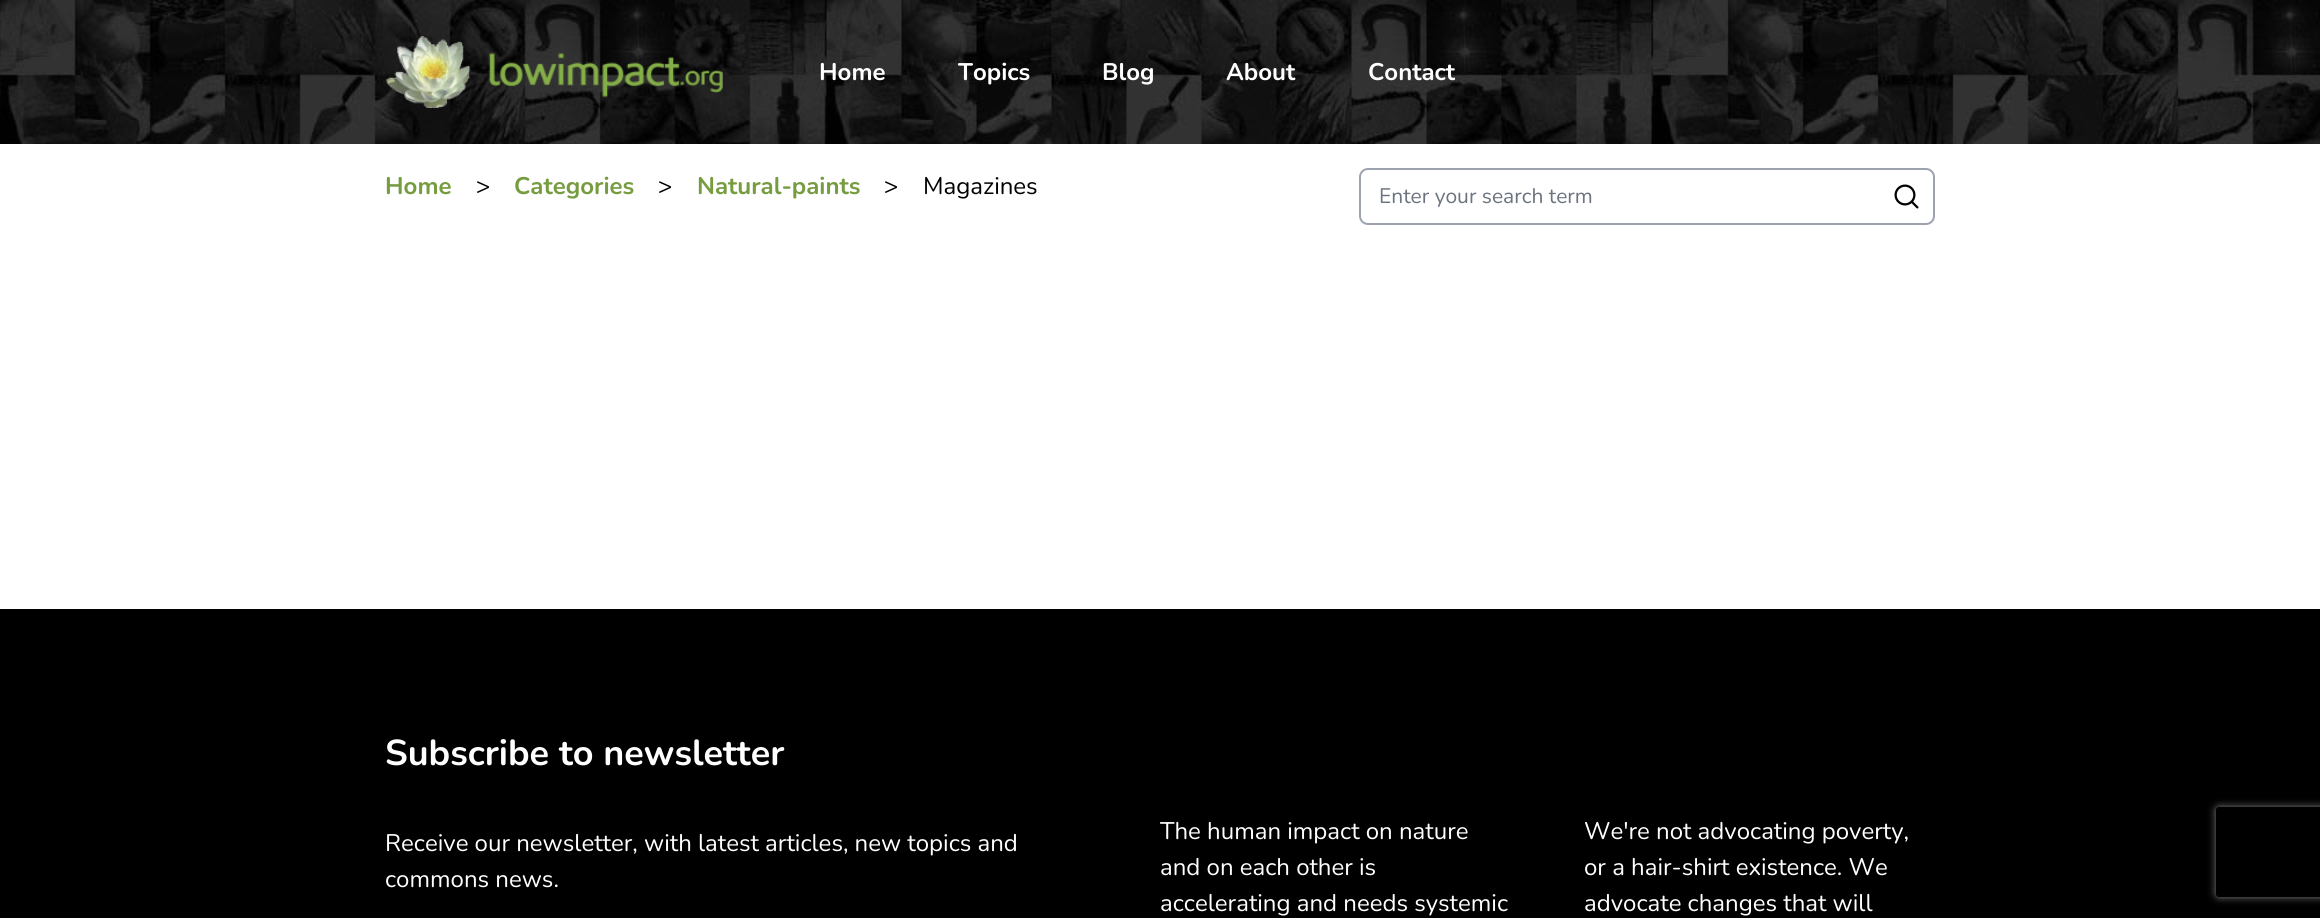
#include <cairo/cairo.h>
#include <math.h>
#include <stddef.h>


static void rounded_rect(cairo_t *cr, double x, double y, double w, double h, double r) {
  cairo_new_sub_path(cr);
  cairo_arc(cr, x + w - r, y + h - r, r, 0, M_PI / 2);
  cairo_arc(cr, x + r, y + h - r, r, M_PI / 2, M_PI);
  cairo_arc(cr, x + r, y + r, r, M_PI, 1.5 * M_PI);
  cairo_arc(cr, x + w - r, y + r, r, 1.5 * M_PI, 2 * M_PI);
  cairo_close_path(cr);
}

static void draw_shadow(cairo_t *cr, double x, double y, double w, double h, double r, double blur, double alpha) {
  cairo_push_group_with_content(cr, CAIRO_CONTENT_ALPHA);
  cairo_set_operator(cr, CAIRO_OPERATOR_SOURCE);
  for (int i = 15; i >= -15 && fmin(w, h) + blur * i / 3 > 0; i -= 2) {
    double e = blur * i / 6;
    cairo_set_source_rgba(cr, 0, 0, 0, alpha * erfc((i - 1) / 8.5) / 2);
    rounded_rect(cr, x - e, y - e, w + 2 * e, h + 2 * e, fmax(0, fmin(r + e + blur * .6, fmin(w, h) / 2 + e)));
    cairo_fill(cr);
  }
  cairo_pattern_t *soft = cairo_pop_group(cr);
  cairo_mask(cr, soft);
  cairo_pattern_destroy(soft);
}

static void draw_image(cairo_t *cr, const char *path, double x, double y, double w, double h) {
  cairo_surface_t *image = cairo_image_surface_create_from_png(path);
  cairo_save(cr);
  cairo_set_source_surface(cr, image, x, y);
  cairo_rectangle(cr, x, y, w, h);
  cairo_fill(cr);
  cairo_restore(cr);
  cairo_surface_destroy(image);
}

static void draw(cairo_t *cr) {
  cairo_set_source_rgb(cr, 1, 1, 1);
  cairo_paint(cr);
  draw_image(cr, "images/1.png", 0, 0, 2320, 144);
  draw_image(cr, "images/2.png", 385, 36, 338, 72);
  rounded_rect(cr, 1360, 169, 574, 55, 8);
  cairo_set_source_rgb(cr, 156 / 255.0, 163 / 255.0, 175 / 255.0);
  cairo_stroke(cr);
  draw_image(cr, "images/3.png", 1894, 184, 25, 25);
  cairo_set_source_rgb(cr, 0, 0, 0);
  cairo_rectangle(cr, 0, 609, 2320, 309);
  cairo_fill(cr);
  cairo_save(cr);
  cairo_set_fill_rule(cr, CAIRO_FILL_RULE_EVEN_ODD);
  cairo_new_path(cr);
  cairo_move_to(cr, 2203, 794);
  cairo_line_to(cr, 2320, 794);
  cairo_line_to(cr, 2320, 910);
  cairo_line_to(cr, 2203, 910);
  cairo_close_path(cr);
  cairo_move_to(cr, 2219, 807);
  cairo_line_to(cr, 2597, 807);
  cairo_curve_to(cr, 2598.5, 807, 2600, 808.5, 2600, 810);
  cairo_line_to(cr, 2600, 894);
  cairo_curve_to(cr, 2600, 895.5, 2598.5, 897, 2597, 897);
  cairo_line_to(cr, 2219, 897);
  cairo_curve_to(cr, 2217.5, 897, 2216, 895.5, 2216, 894);
  cairo_line_to(cr, 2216, 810);
  cairo_curve_to(cr, 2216, 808.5, 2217.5, 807, 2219, 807);
  cairo_close_path(cr);
  cairo_clip(cr);
  cairo_set_source_rgb(cr, 128 / 255.0, 128 / 255.0, 128 / 255.0);
  draw_shadow(cr, 2216, 807, 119, 90, 3, 4, 1);
  cairo_restore(cr);
  cairo_select_font_face(cr, "Nunito", CAIRO_FONT_SLANT_NORMAL, CAIRO_FONT_WEIGHT_BOLD);
  cairo_set_font_size(cr, 24);
  cairo_set_source_rgb(cr, 1, 1, 1);
  cairo_move_to(cr, 819, 80);
  cairo_show_text(cr, "Home");
  cairo_move_to(cr, 958, 80);
  cairo_show_text(cr, "Topics");
  cairo_move_to(cr, 1102, 80);
  cairo_show_text(cr, "Blog");
  cairo_move_to(cr, 1226, 80);
  cairo_show_text(cr, "About");
  cairo_move_to(cr, 1368, 80);
  cairo_show_text(cr, "Contact");
  cairo_set_source_rgb(cr, 118 / 255.0, 156 / 255.0, 64 / 255.0);
  cairo_move_to(cr, 385, 194);
  cairo_show_text(cr, "Home");
  cairo_select_font_face(cr, "Nunito", CAIRO_FONT_SLANT_NORMAL, CAIRO_FONT_WEIGHT_NORMAL);
  cairo_set_source_rgb(cr, 0, 0, 0);
  cairo_move_to(cr, 476, 194);
  cairo_show_text(cr, ">");
  cairo_select_font_face(cr, "Nunito", CAIRO_FONT_SLANT_NORMAL, CAIRO_FONT_WEIGHT_BOLD);
  cairo_set_source_rgb(cr, 118 / 255.0, 156 / 255.0, 64 / 255.0);
  cairo_move_to(cr, 514, 194);
  cairo_show_text(cr, "Categories");
  cairo_select_font_face(cr, "Nunito", CAIRO_FONT_SLANT_NORMAL, CAIRO_FONT_WEIGHT_NORMAL);
  cairo_set_source_rgb(cr, 0, 0, 0);
  cairo_move_to(cr, 658, 194);
  cairo_show_text(cr, ">");
  cairo_select_font_face(cr, "Nunito", CAIRO_FONT_SLANT_NORMAL, CAIRO_FONT_WEIGHT_BOLD);
  cairo_set_source_rgb(cr, 118 / 255.0, 156 / 255.0, 64 / 255.0);
  cairo_move_to(cr, 697, 194);
  cairo_show_text(cr, "Natural-paints");
  cairo_select_font_face(cr, "Nunito", CAIRO_FONT_SLANT_NORMAL, CAIRO_FONT_WEIGHT_NORMAL);
  cairo_set_source_rgb(cr, 0, 0, 0);
  cairo_move_to(cr, 884, 194);
  cairo_show_text(cr, ">");
  cairo_move_to(cr, 923, 194);
  cairo_show_text(cr, "Magazines");
  cairo_set_font_size(cr, 21);
  cairo_set_source_rgb(cr, 107 / 255.0, 114 / 255.0, 128 / 255.0);
  cairo_move_to(cr, 1379, 203);
  cairo_show_text(cr, "Enter your search term");
  cairo_select_font_face(cr, "Nunito", CAIRO_FONT_SLANT_NORMAL, CAIRO_FONT_WEIGHT_BOLD);
  cairo_set_font_size(cr, 36);
  cairo_set_source_rgb(cr, 1, 1, 1);
  cairo_move_to(cr, 385, 765);
  cairo_show_text(cr, "Subscribe to newsletter");
  cairo_select_font_face(cr, "Nunito", CAIRO_FONT_SLANT_NORMAL, CAIRO_FONT_WEIGHT_NORMAL);
  cairo_set_font_size(cr, 24);
  cairo_move_to(cr, 385, 851);
  cairo_show_text(cr, "Receive our newsletter, with latest articles, new topics and");
  cairo_move_to(cr, 385, 887);
  cairo_show_text(cr, "commons news.");
  cairo_move_to(cr, 1160, 839);
  cairo_show_text(cr, "The human impact on nature");
  cairo_move_to(cr, 1160, 875);
  cairo_show_text(cr, "and on each other is");
  cairo_move_to(cr, 1160, 911);
  cairo_show_text(cr, "accelerating and needs systemic");
  cairo_move_to(cr, 1584, 839);
  cairo_show_text(cr, "We're not advocating poverty,");
  cairo_move_to(cr, 1584, 875);
  cairo_show_text(cr, "or a hair-shirt existence. We");
  cairo_move_to(cr, 1584, 911);
  cairo_show_text(cr, "advocate changes that will");
}

int main(void) {
  cairo_surface_t *surface = cairo_image_surface_create(CAIRO_FORMAT_RGB24, 2320, 918);
  cairo_t *cr = cairo_create(surface);
  cairo_font_options_t *options = cairo_font_options_create();
  cairo_font_options_set_hint_metrics(options, CAIRO_HINT_METRICS_OFF);
  cairo_font_options_set_hint_style(options, CAIRO_HINT_STYLE_NONE);
  cairo_set_font_options(cr, options);
  cairo_set_miter_limit(cr, 4);
  draw(cr);
  cairo_surface_write_to_png(surface, "out.png");
  cairo_font_options_destroy(options);
  cairo_destroy(cr);
  cairo_surface_destroy(surface);
  return 0;
}
